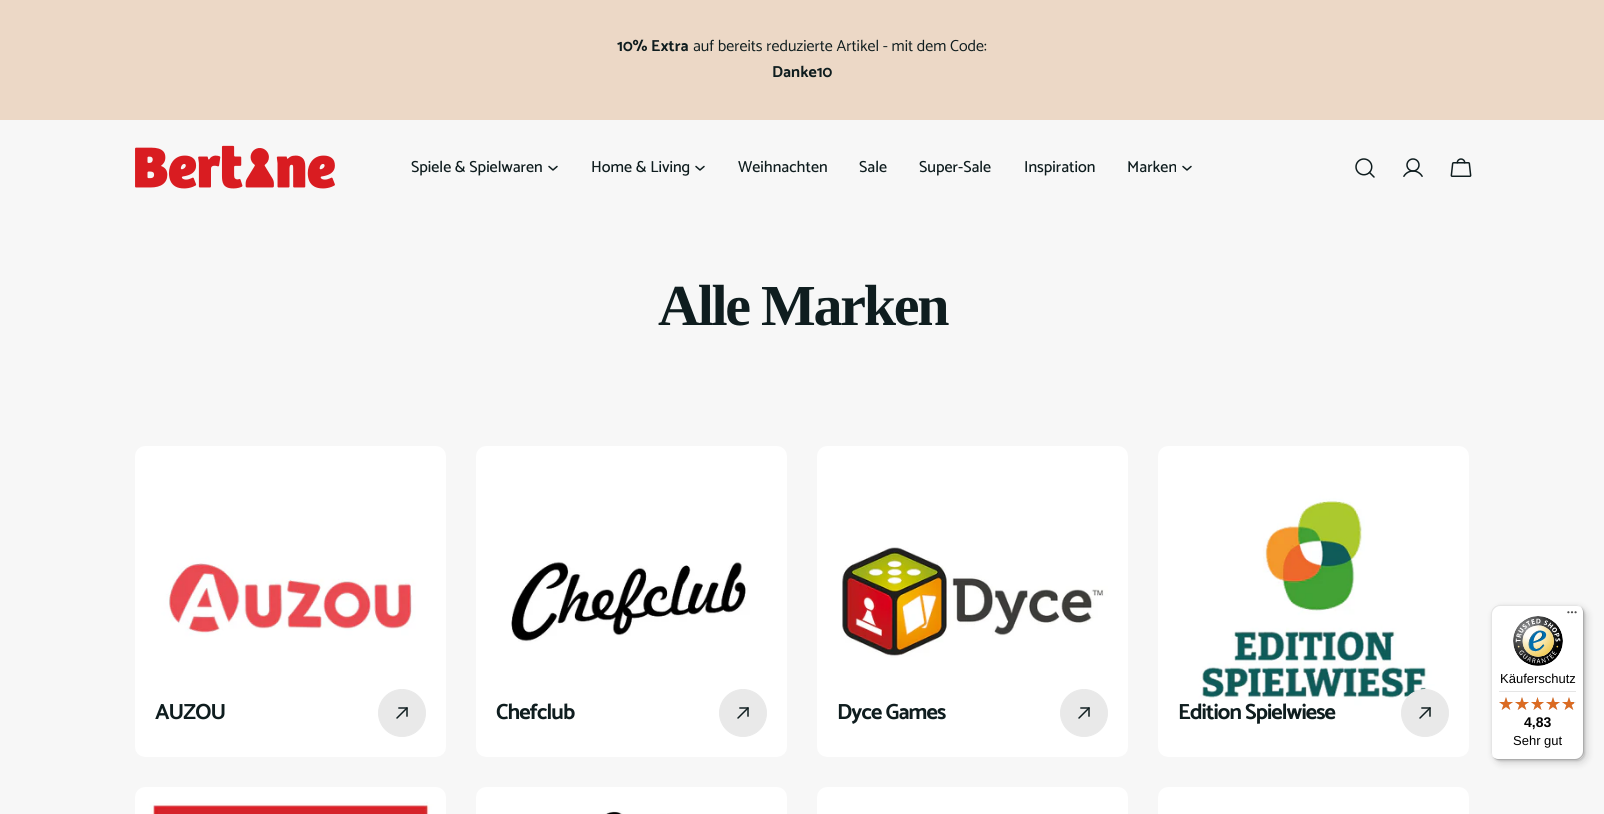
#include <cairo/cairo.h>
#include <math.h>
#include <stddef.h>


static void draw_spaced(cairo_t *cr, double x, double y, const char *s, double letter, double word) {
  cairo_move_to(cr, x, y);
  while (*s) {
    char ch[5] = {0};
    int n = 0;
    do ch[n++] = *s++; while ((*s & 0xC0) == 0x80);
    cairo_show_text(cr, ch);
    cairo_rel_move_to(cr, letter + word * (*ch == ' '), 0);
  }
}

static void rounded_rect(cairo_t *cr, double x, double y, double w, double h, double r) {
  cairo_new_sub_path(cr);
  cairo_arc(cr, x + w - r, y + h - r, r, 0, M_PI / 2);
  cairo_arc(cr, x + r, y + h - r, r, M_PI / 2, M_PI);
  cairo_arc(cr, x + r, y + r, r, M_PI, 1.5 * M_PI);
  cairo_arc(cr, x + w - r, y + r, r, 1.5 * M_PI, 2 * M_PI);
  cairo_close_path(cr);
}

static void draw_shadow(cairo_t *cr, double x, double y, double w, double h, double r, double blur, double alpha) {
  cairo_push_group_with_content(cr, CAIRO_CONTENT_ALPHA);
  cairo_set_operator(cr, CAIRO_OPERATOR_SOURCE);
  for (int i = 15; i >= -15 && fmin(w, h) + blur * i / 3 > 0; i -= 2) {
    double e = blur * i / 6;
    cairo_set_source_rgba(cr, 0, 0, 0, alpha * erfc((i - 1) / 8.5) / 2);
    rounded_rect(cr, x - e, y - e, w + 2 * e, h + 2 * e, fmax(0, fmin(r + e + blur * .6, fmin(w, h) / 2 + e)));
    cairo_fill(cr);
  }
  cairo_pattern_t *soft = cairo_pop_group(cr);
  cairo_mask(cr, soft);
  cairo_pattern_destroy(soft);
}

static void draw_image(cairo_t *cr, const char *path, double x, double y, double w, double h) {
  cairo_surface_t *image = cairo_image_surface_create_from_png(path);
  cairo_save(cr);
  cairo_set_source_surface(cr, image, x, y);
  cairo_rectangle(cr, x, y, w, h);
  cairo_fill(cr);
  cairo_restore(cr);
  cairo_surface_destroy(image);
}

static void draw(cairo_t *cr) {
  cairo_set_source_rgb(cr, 247 / 255.0, 247 / 255.0, 247 / 255.0);
  cairo_paint(cr);
  cairo_set_source_rgb(cr, 236 / 255.0, 216 / 255.0, 198 / 255.0);
  cairo_rectangle(cr, 0, 0, 1604, 120);
  cairo_fill(cr);
  draw_image(cr, "images/1.png", 135, 145, 200, 44);
  cairo_new_path(cr);
  cairo_move_to(cr, 557, 166.5);
  cairo_line_to(cr, 553, 170);
  cairo_line_to(cr, 549, 166.5);
  cairo_set_source_rgb(cr, 15 / 255.0, 29 / 255.0, 31 / 255.0);
  cairo_set_line_width(cr, 1.5);
  cairo_set_line_cap(cr, CAIRO_LINE_CAP_ROUND);
  cairo_set_line_join(cr, CAIRO_LINE_JOIN_ROUND);
  cairo_stroke(cr);
  cairo_new_path(cr);
  cairo_move_to(cr, 704, 166.5);
  cairo_line_to(cr, 700, 170);
  cairo_line_to(cr, 696, 166.5);
  cairo_stroke(cr);
  cairo_new_path(cr);
  cairo_move_to(cr, 1191, 166.5);
  cairo_line_to(cr, 1187, 170);
  cairo_line_to(cr, 1183, 166.5);
  cairo_stroke(cr);
  draw_image(cr, "images/2.png", 1355, 158, 20, 20);
  draw_image(cr, "images/3.png", 1403, 158, 20, 19);
  draw_image(cr, "images/4.png", 1450, 158, 22, 19);
  draw_image(cr, "images/5.png", 135, 446, 311, 311);
  cairo_set_source_rgb(cr, 233 / 255.0, 233 / 255.0, 233 / 255.0);
  cairo_arc(cr, 402, 713, 23.5, 0, 2 * M_PI);
  cairo_fill_preserve(cr);
  cairo_set_line_width(cr, 1);
  cairo_set_line_cap(cr, CAIRO_LINE_CAP_BUTT);
  cairo_set_line_join(cr, CAIRO_LINE_JOIN_MITER);
  cairo_stroke(cr);
  draw_image(cr, "images/6.png", 396, 707, 12, 12);
  draw_image(cr, "images/7.png", 476, 446, 311, 311);
  cairo_arc(cr, 743, 713, 23.5, 0, 2 * M_PI);
  cairo_fill_preserve(cr);
  cairo_stroke(cr);
  draw_image(cr, "images/6.png", 737, 707, 12, 12);
  draw_image(cr, "images/8.png", 817, 446, 311, 311);
  cairo_arc(cr, 1084, 713, 23.5, 0, 2 * M_PI);
  cairo_fill_preserve(cr);
  cairo_stroke(cr);
  draw_image(cr, "images/6.png", 1078, 707, 12, 12);
  draw_image(cr, "images/9.png", 1158, 446, 311, 311);
  cairo_arc(cr, 1425, 713, 23.5, 0, 2 * M_PI);
  cairo_fill_preserve(cr);
  cairo_stroke(cr);
  draw_image(cr, "images/6.png", 1419, 707, 12, 12);
  draw_image(cr, "images/10.png", 135, 787, 311, 27);
  draw_image(cr, "images/11.png", 476, 787, 311, 27);
  draw_image(cr, "images/12.png", 817, 787, 311, 27);
  draw_image(cr, "images/12.png", 1158, 787, 311, 27);
  cairo_set_source_rgb(cr, 0, 0, 0);
  draw_shadow(cr, 1494, 608, 93, 155, 8, 4, 0.15);
  draw_shadow(cr, 1492, 606, 93, 155, 8, 1, 0.15);
  cairo_set_source_rgb(cr, 1, 1, 1);
  rounded_rect(cr, 1491, 605, 93, 155, 8);
  cairo_fill(cr);
  cairo_set_source_rgb(cr, 229 / 255.0, 229 / 255.0, 229 / 255.0);
  cairo_new_path(cr);
  cairo_move_to(cr, 1500, 606);
  cairo_line_to(cr, 1577, 606);
  cairo_curve_to(cr, 1579, 606, 1581, 607, 1583, 609);
  cairo_curve_to(cr, 1581, 607, 1579, 605, 1576, 605);
  cairo_line_to(cr, 1499, 605);
  cairo_curve_to(cr, 1495, 605, 1491, 609, 1491, 613);
  cairo_line_to(cr, 1491, 752);
  cairo_curve_to(cr, 1491, 755, 1493, 757, 1495, 759);
  cairo_curve_to(cr, 1493, 757, 1492, 755, 1492, 753);
  cairo_line_to(cr, 1492, 614);
  cairo_curve_to(cr, 1492, 610, 1496, 606, 1500, 606);
  cairo_close_path(cr);
  cairo_fill(cr);
  cairo_set_source_rgba(cr, 0, 0, 0, 0.2);
  cairo_new_path(cr);
  cairo_move_to(cr, 1492, 756);
  cairo_curve_to(cr, 1494, 758, 1496, 760, 1499, 760);
  cairo_line_to(cr, 1576, 760);
  cairo_curve_to(cr, 1580, 760, 1584, 756, 1584, 752);
  cairo_line_to(cr, 1584, 613);
  cairo_curve_to(cr, 1584, 610, 1582, 608, 1580, 606);
  cairo_curve_to(cr, 1582, 608, 1583, 610, 1583, 612);
  cairo_line_to(cr, 1583, 751);
  cairo_curve_to(cr, 1583, 755, 1579, 759, 1575, 759);
  cairo_line_to(cr, 1498, 759);
  cairo_curve_to(cr, 1496, 759, 1494, 758, 1492, 756);
  cairo_close_path(cr);
  cairo_fill(cr);
  cairo_set_source_rgba(cr, 50 / 255.0, 50 / 255.0, 50 / 255.0, 0.2);
  cairo_new_path(cr);
  cairo_move_to(cr, 1493, 757);
  cairo_curve_to(cr, 1494, 759, 1497, 760, 1499, 760);
  cairo_line_to(cr, 1576, 760);
  cairo_curve_to(cr, 1580, 760, 1584, 756, 1584, 752);
  cairo_line_to(cr, 1584, 613);
  cairo_curve_to(cr, 1584, 611, 1583, 608, 1581, 607);
  cairo_curve_to(cr, 1582, 608, 1583, 610, 1583, 612);
  cairo_line_to(cr, 1583, 751);
  cairo_curve_to(cr, 1583, 756, 1580, 759, 1575, 759);
  cairo_line_to(cr, 1498, 759);
  cairo_curve_to(cr, 1496, 759, 1494, 758, 1493, 757);
  cairo_close_path(cr);
  cairo_fill(cr);
  draw_image(cr, "images/13.png", 1567, 611, 10, 3);
  cairo_set_source_rgba(cr, 1, 1, 1, 0.3);
  cairo_new_path(cr);
  cairo_move_to(cr, 1576, 760);
  cairo_curve_to(cr, 1580.5, 760, 1584, 756.5, 1584, 752);
  cairo_curve_to(cr, 1584, 756, 1580, 760, 1576, 760);
  cairo_close_path(cr);
  cairo_fill(cr);
  draw_image(cr, "images/14.png", 1513, 616, 50, 50);
  cairo_set_source_rgb(cr, 229 / 255.0, 229 / 255.0, 229 / 255.0);
  cairo_rectangle(cr, 1499, 691, 77, 1);
  cairo_fill(cr);
  draw_image(cr, "images/15.png", 1499, 697, 14, 13);
  draw_image(cr, "images/15.png", 1515, 697, 14, 13);
  draw_image(cr, "images/16.png", 1531, 697, 13, 13);
  draw_image(cr, "images/15.png", 1546, 697, 14, 13);
  draw_image(cr, "images/15.png", 1562, 697, 14, 13);
  draw_image(cr, "images/17.png", 1499, 697, 14, 13);
  draw_image(cr, "images/17.png", 1515, 697, 14, 13);
  draw_image(cr, "images/18.png", 1531, 697, 13, 13);
  draw_image(cr, "images/17.png", 1546, 697, 14, 13);
  draw_image(cr, "images/19.png", 1562, 697, 12, 13);
  cairo_select_font_face(cr, "Catamaran", CAIRO_FONT_SLANT_NORMAL, CAIRO_FONT_WEIGHT_BOLD);
  cairo_set_font_size(cr, 16);
  cairo_set_source_rgb(cr, 15 / 255.0, 29 / 255.0, 31 / 255.0);
  cairo_move_to(cr, 617, 51);
  cairo_show_text(cr, "10% Extra");
  cairo_select_font_face(cr, "Catamaran", CAIRO_FONT_SLANT_NORMAL, CAIRO_FONT_WEIGHT_NORMAL);
  cairo_move_to(cr, 693, 51);
  cairo_show_text(cr, "auf bereits reduzierte Artikel - mit dem Code:");
  cairo_select_font_face(cr, "Catamaran", CAIRO_FONT_SLANT_NORMAL, CAIRO_FONT_WEIGHT_BOLD);
  cairo_move_to(cr, 772, 77);
  cairo_show_text(cr, "Danke10");
  cairo_select_font_face(cr, "Catamaran Medium", CAIRO_FONT_SLANT_NORMAL, CAIRO_FONT_WEIGHT_NORMAL);
  cairo_move_to(cr, 411, 172);
  cairo_show_text(cr, "Spiele & Spielwaren");
  cairo_move_to(cr, 591, 172);
  cairo_show_text(cr, "Home & Living");
  cairo_move_to(cr, 738, 172);
  cairo_show_text(cr, "Weihnachten");
  cairo_move_to(cr, 859, 172);
  cairo_show_text(cr, "Sale");
  cairo_move_to(cr, 919, 172);
  cairo_show_text(cr, "Super-Sale");
  cairo_move_to(cr, 1024, 172);
  cairo_show_text(cr, "Inspiration");
  cairo_move_to(cr, 1127, 172);
  cairo_show_text(cr, "Marken");
  cairo_select_font_face(cr, "Liberation Serif", CAIRO_FONT_SLANT_NORMAL, CAIRO_FONT_WEIGHT_BOLD);
  cairo_set_font_size(cr, 58);
  draw_spaced(cr, 658, 325, "Alle Marken", -2.25, 0);
  cairo_select_font_face(cr, "Catamaran", CAIRO_FONT_SLANT_NORMAL, CAIRO_FONT_WEIGHT_BOLD);
  cairo_set_font_size(cr, 22);
  draw_spaced(cr, 155, 719, "AUZOU", -0.9, 0);
  draw_spaced(cr, 496, 719, "Chefclub", -0.9, 0);
  draw_spaced(cr, 837, 719, "Dyce Games", -0.9, 0);
  draw_spaced(cr, 1178, 719, "Edition Spielwiese", -0.9, 0);
  cairo_select_font_face(cr, "Liberation Sans", CAIRO_FONT_SLANT_NORMAL, CAIRO_FONT_WEIGHT_NORMAL);
  cairo_set_font_size(cr, 13);
  cairo_set_source_rgb(cr, 0, 0, 0);
  cairo_move_to(cr, 1500, 683);
  cairo_show_text(cr, "Käuferschutz");
  cairo_select_font_face(cr, "Liberation Sans", CAIRO_FONT_SLANT_NORMAL, CAIRO_FONT_WEIGHT_BOLD);
  cairo_set_font_size(cr, 14);
  cairo_move_to(cr, 1524, 727);
  cairo_show_text(cr, "4,83");
  cairo_select_font_face(cr, "Liberation Sans", CAIRO_FONT_SLANT_NORMAL, CAIRO_FONT_WEIGHT_NORMAL);
  cairo_set_font_size(cr, 13);
  cairo_move_to(cr, 1513, 745);
  cairo_show_text(cr, "Sehr gut");
}

int main(void) {
  cairo_surface_t *surface = cairo_image_surface_create(CAIRO_FORMAT_RGB24, 1604, 814);
  cairo_t *cr = cairo_create(surface);
  cairo_font_options_t *options = cairo_font_options_create();
  cairo_font_options_set_hint_metrics(options, CAIRO_HINT_METRICS_OFF);
  cairo_font_options_set_hint_style(options, CAIRO_HINT_STYLE_NONE);
  cairo_set_font_options(cr, options);
  cairo_set_miter_limit(cr, 4);
  draw(cr);
  cairo_surface_write_to_png(surface, "out.png");
  cairo_font_options_destroy(options);
  cairo_destroy(cr);
  cairo_surface_destroy(surface);
  return 0;
}
